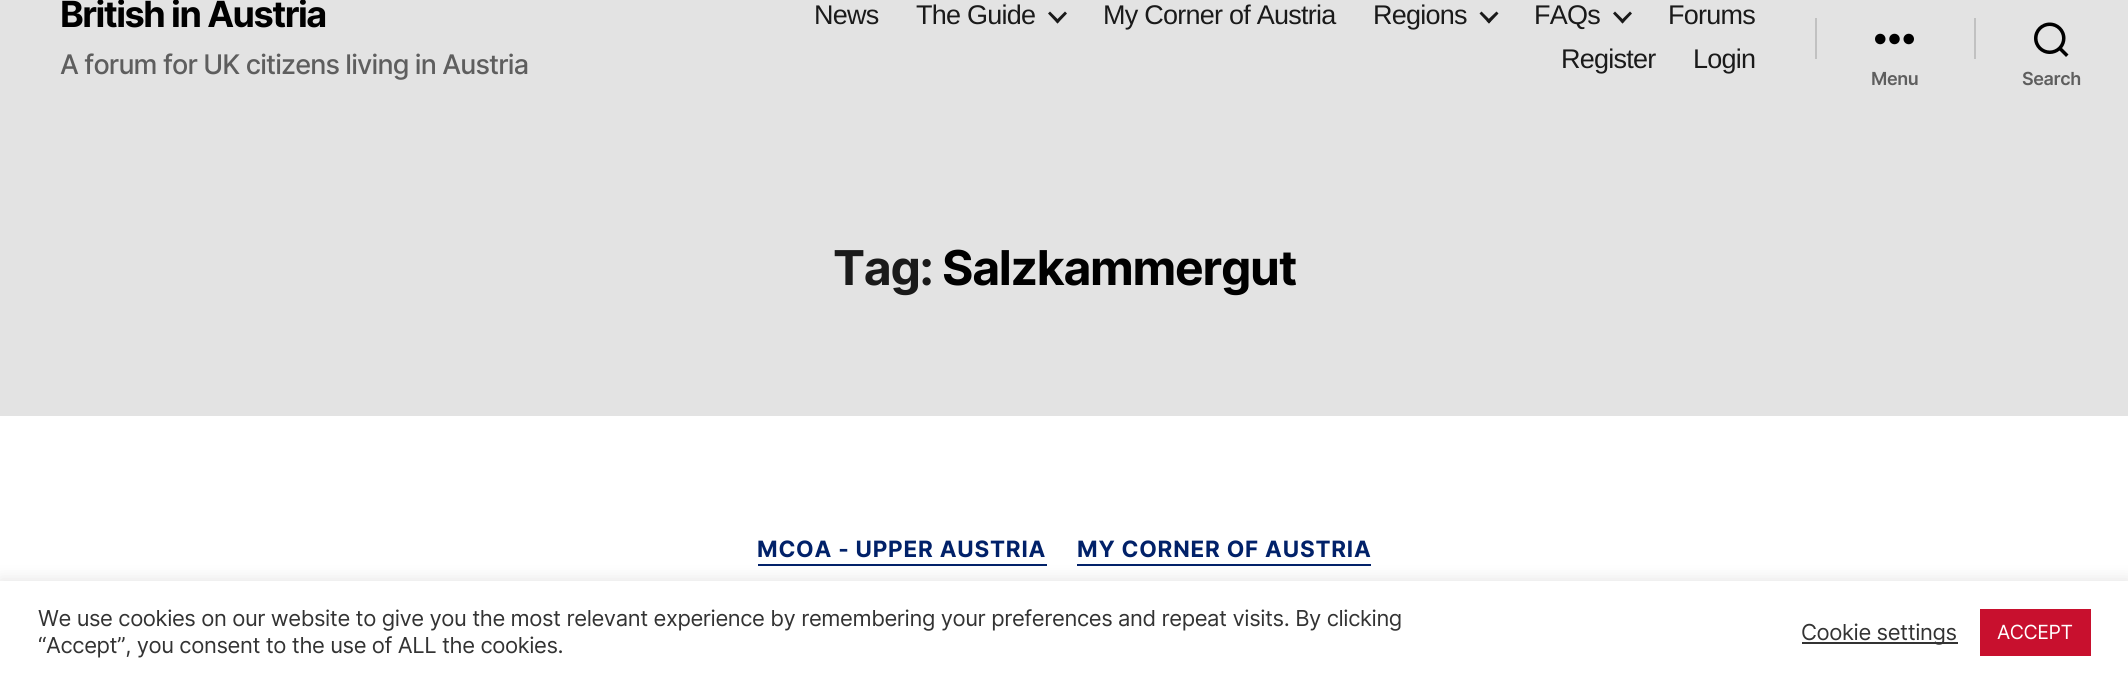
#include <cairo/cairo.h>
#include <math.h>
#include <stddef.h>


static void draw_spaced(cairo_t *cr, double x, double y, const char *s, double letter, double word) {
  cairo_move_to(cr, x, y);
  while (*s) {
    char ch[5] = {0};
    int n = 0;
    do ch[n++] = *s++; while ((*s & 0xC0) == 0x80);
    cairo_show_text(cr, ch);
    cairo_rel_move_to(cr, letter + word * (*ch == ' '), 0);
  }
}

static void rounded_rect(cairo_t *cr, double x, double y, double w, double h, double r) {
  cairo_new_sub_path(cr);
  cairo_arc(cr, x + w - r, y + h - r, r, 0, M_PI / 2);
  cairo_arc(cr, x + r, y + h - r, r, M_PI / 2, M_PI);
  cairo_arc(cr, x + r, y + r, r, M_PI, 1.5 * M_PI);
  cairo_arc(cr, x + w - r, y + r, r, 1.5 * M_PI, 2 * M_PI);
  cairo_close_path(cr);
}

static void draw_shadow(cairo_t *cr, double x, double y, double w, double h, double r, double blur, double alpha) {
  cairo_push_group_with_content(cr, CAIRO_CONTENT_ALPHA);
  cairo_set_operator(cr, CAIRO_OPERATOR_SOURCE);
  for (int i = 15; i >= -15 && fmin(w, h) + blur * i / 3 > 0; i -= 2) {
    double e = blur * i / 6;
    cairo_set_source_rgba(cr, 0, 0, 0, alpha * erfc((i - 1) / 8.5) / 2);
    rounded_rect(cr, x - e, y - e, w + 2 * e, h + 2 * e, fmax(0, fmin(r + e + blur * .6, fmin(w, h) / 2 + e)));
    cairo_fill(cr);
  }
  cairo_pattern_t *soft = cairo_pop_group(cr);
  cairo_mask(cr, soft);
  cairo_pattern_destroy(soft);
}

static void draw_image(cairo_t *cr, const char *path, double x, double y, double w, double h) {
  cairo_surface_t *image = cairo_image_surface_create_from_png(path);
  cairo_save(cr);
  cairo_set_source_surface(cr, image, x, y);
  cairo_rectangle(cr, x, y, w, h);
  cairo_fill(cr);
  cairo_restore(cr);
  cairo_surface_destroy(image);
}

static void draw(cairo_t *cr) {
  cairo_set_source_rgb(cr, 1, 1, 1);
  cairo_paint(cr);
  cairo_set_source_rgb(cr, 227 / 255.0, 227 / 255.0, 227 / 255.0);
  cairo_rectangle(cr, 0, 0, 2128, 416);
  cairo_fill(cr);
  cairo_set_source_rgb(cr, 26 / 255.0, 26 / 255.0, 26 / 255.0);
  cairo_new_path(cr);
  cairo_move_to(cr, 1048, 13.5);
  cairo_line_to(cr, 1050, 11.5);
  cairo_line_to(cr, 1059.5, 21);
  cairo_line_to(cr, 1057.5, 23.5);
  cairo_close_path(cr);
  cairo_fill(cr);
  cairo_new_path(cr);
  cairo_move_to(cr, 1055.5, 21);
  cairo_line_to(cr, 1065, 11.5);
  cairo_line_to(cr, 1067, 13.5);
  cairo_line_to(cr, 1057.5, 23.5);
  cairo_close_path(cr);
  cairo_fill(cr);
  cairo_new_path(cr);
  cairo_move_to(cr, 1479.5, 13.5);
  cairo_line_to(cr, 1481.5, 11.5);
  cairo_line_to(cr, 1491, 21);
  cairo_line_to(cr, 1489, 23.5);
  cairo_close_path(cr);
  cairo_fill(cr);
  cairo_new_path(cr);
  cairo_move_to(cr, 1486.5, 21);
  cairo_line_to(cr, 1496.5, 11.5);
  cairo_line_to(cr, 1498.5, 13.5);
  cairo_line_to(cr, 1489, 23.5);
  cairo_close_path(cr);
  cairo_fill(cr);
  cairo_new_path(cr);
  cairo_move_to(cr, 1613, 13.5);
  cairo_line_to(cr, 1615, 11.5);
  cairo_line_to(cr, 1624.5, 21);
  cairo_line_to(cr, 1622.5, 23.5);
  cairo_close_path(cr);
  cairo_fill(cr);
  cairo_new_path(cr);
  cairo_move_to(cr, 1620.5, 21);
  cairo_line_to(cr, 1630, 11.5);
  cairo_line_to(cr, 1632, 13.5);
  cairo_line_to(cr, 1622.5, 23.5);
  cairo_close_path(cr);
  cairo_fill(cr);
  cairo_set_source_rgb(cr, 193 / 255.0, 193 / 255.0, 193 / 255.0);
  cairo_rectangle(cr, 1815, 18, 2, 41);
  cairo_fill(cr);
  draw_image(cr, "images/1.png", 1875, 33, 39, 12);
  cairo_rectangle(cr, 1974, 18, 2, 41);
  cairo_fill(cr);
  draw_image(cr, "images/2.png", 2034, 22, 35, 35);
  cairo_set_source_rgb(cr, 1 / 255.0, 33 / 255.0, 105 / 255.0);
  cairo_rectangle(cr, 758, 564, 289, 2);
  cairo_fill(cr);
  cairo_rectangle(cr, 1077, 564, 294, 2);
  cairo_fill(cr);
  cairo_set_source_rgb(cr, 172 / 255.0, 171 / 255.0, 171 / 255.0);
  draw_shadow(cr, 0, 579, 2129, 104, 0, 7.5, 0.3);
  cairo_set_source_rgb(cr, 1, 1, 1);
  cairo_rectangle(cr, 0, 581, 2128, 102);
  cairo_fill(cr);
  cairo_set_source_rgb(cr, 51 / 255.0, 51 / 255.0, 51 / 255.0);
  cairo_rectangle(cr, 1802, 642, 156, 2);
  cairo_fill(cr);
  cairo_set_source_rgb(cr, 200 / 255.0, 16 / 255.0, 46 / 255.0);
  cairo_rectangle(cr, 1980, 609, 111, 47);
  cairo_fill(cr);
  cairo_select_font_face(cr, "Inter", CAIRO_FONT_SLANT_NORMAL, CAIRO_FONT_WEIGHT_BOLD);
  cairo_set_font_size(cr, 36);
  cairo_set_source_rgb(cr, 0, 0, 0);
  draw_spaced(cr, 60, 27, "British in Austria", -1.5, 0);
  cairo_select_font_face(cr, "Inter Medium", CAIRO_FONT_SLANT_NORMAL, CAIRO_FONT_WEIGHT_NORMAL);
  cairo_set_font_size(cr, 27);
  cairo_set_source_rgb(cr, 94 / 255.0, 94 / 255.0, 94 / 255.0);
  draw_spaced(cr, 60, 74, "A forum for UK citizens living in Austria", -0.85, 0);
  cairo_select_font_face(cr, "Liberation Sans", CAIRO_FONT_SLANT_NORMAL, CAIRO_FONT_WEIGHT_NORMAL);
  cairo_set_source_rgb(cr, 26 / 255.0, 26 / 255.0, 26 / 255.0);
  draw_spaced(cr, 814, 24, "News", -0.75, 0);
  draw_spaced(cr, 916, 24, "The Guide", -0.75, 0);
  draw_spaced(cr, 1103, 24, "My Corner of Austria", -0.75, 0);
  draw_spaced(cr, 1373, 24, "Regions", -0.75, 0);
  draw_spaced(cr, 1534, 24, "FAQs", -0.75, 0);
  draw_spaced(cr, 1668, 24, "Forums", -0.75, 0);
  draw_spaced(cr, 1561, 68, "Register", -0.75, 0);
  draw_spaced(cr, 1693, 68, "Login", -0.75, 0);
  cairo_select_font_face(cr, "Inter SemiBold", CAIRO_FONT_SLANT_NORMAL, CAIRO_FONT_WEIGHT_NORMAL);
  cairo_set_font_size(cr, 18);
  cairo_set_source_rgb(cr, 94 / 255.0, 94 / 255.0, 94 / 255.0);
  draw_spaced(cr, 1871, 85, "Menu", -0.41, 0);
  draw_spaced(cr, 2022, 85, "Search", -0.41, 0);
  cairo_select_font_face(cr, "Inter", CAIRO_FONT_SLANT_NORMAL, CAIRO_FONT_WEIGHT_BOLD);
  cairo_set_font_size(cr, 48);
  cairo_set_source_rgb(cr, 26 / 255.0, 26 / 255.0, 26 / 255.0);
  draw_spaced(cr, 833, 285, "Tag:", -1.25, 0);
  cairo_set_source_rgb(cr, 0, 0, 0);
  draw_spaced(cr, 942, 285, "Salzkammergut", -1.25, 0);
  cairo_set_font_size(cr, 22.5);
  cairo_set_source_rgb(cr, 1 / 255.0, 33 / 255.0, 105 / 255.0);
  draw_spaced(cr, 757, 557, "MCOA - UPPER AUSTRIA", 0.8, 0);
  draw_spaced(cr, 1077, 557, "MY CORNER OF AUSTRIA", 0.8, 0);
  cairo_select_font_face(cr, "Inter", CAIRO_FONT_SLANT_NORMAL, CAIRO_FONT_WEIGHT_NORMAL);
  cairo_set_font_size(cr, 22);
  cairo_set_source_rgb(cr, 51 / 255.0, 51 / 255.0, 51 / 255.0);
  draw_spaced(cr, 38, 626, "We use cookies on our website to give you the most relevant experience by remembering your preferences and repeat visits. By clicking", -0.41, 0);
  draw_spaced(cr, 38, 653, "“Accept”, you consent to the use of ALL the cookies.", -0.41, 0);
  draw_spaced(cr, 1801, 640, "Cookie settings", -0.41, 0);
  cairo_set_font_size(cr, 19.5);
  cairo_set_source_rgb(cr, 1, 1, 1);
  draw_spaced(cr, 1997, 639, "ACCEPT", -0.41, 0);
}

int main(void) {
  cairo_surface_t *surface = cairo_image_surface_create(CAIRO_FORMAT_RGB24, 2128, 683);
  cairo_t *cr = cairo_create(surface);
  cairo_font_options_t *options = cairo_font_options_create();
  cairo_font_options_set_hint_metrics(options, CAIRO_HINT_METRICS_OFF);
  cairo_font_options_set_hint_style(options, CAIRO_HINT_STYLE_NONE);
  cairo_set_font_options(cr, options);
  cairo_set_miter_limit(cr, 4);
  draw(cr);
  cairo_surface_write_to_png(surface, "out.png");
  cairo_font_options_destroy(options);
  cairo_destroy(cr);
  cairo_surface_destroy(surface);
  return 0;
}
